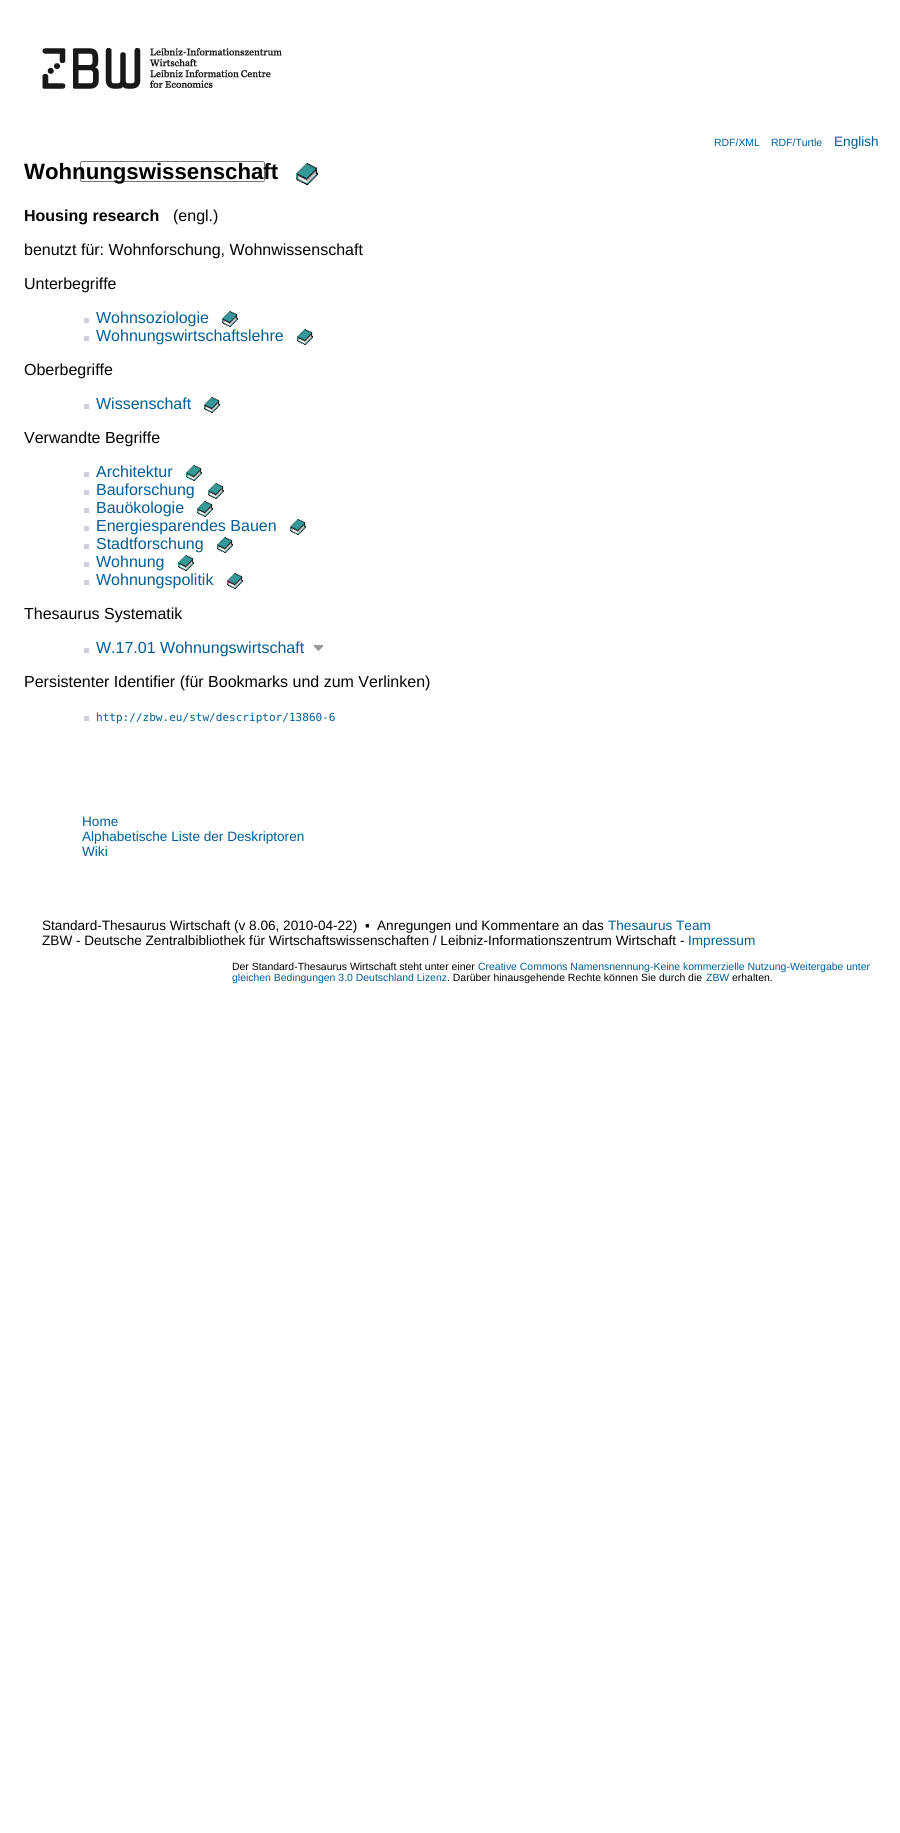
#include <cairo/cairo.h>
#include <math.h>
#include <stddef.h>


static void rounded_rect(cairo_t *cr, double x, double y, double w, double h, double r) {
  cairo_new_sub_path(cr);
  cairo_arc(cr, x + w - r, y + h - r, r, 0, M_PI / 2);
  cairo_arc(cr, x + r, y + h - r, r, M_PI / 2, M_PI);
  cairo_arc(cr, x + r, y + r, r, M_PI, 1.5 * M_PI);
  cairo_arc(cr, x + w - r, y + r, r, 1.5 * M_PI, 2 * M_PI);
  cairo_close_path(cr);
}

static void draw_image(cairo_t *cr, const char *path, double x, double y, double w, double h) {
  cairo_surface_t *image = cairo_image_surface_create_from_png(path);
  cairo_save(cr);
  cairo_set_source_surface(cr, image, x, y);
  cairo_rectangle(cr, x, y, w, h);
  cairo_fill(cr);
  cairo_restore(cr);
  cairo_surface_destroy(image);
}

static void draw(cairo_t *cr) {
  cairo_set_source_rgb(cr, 1, 1, 1);
  cairo_paint(cr);
  draw_image(cr, "images/1.png", 42, 48, 240, 41);
  rounded_rect(cr, 80.5, 161.5, 184, 20, 1.5);
  cairo_set_source_rgb(cr, 118 / 255.0, 118 / 255.0, 118 / 255.0);
  cairo_set_line_width(cr, 1);
  cairo_stroke(cr);
  draw_image(cr, "images/2.png", 296, 163, 22, 22);
  cairo_set_source_rgb(cr, 209 / 255.0, 207 / 255.0, 221 / 255.0);
  cairo_rectangle(cr, 84, 318, 5, 5);
  cairo_fill(cr);
  draw_image(cr, "images/3.png", 222, 311, 16, 16);
  cairo_rectangle(cr, 84, 336, 5, 5);
  cairo_fill(cr);
  draw_image(cr, "images/3.png", 297, 329, 16, 16);
  cairo_rectangle(cr, 84, 404, 5, 5);
  cairo_fill(cr);
  draw_image(cr, "images/3.png", 204, 397, 16, 16);
  cairo_rectangle(cr, 84, 472, 5, 5);
  cairo_fill(cr);
  draw_image(cr, "images/3.png", 186, 465, 16, 16);
  cairo_rectangle(cr, 84, 490, 5, 5);
  cairo_fill(cr);
  draw_image(cr, "images/3.png", 208, 483, 16, 16);
  cairo_rectangle(cr, 84, 508, 5, 5);
  cairo_fill(cr);
  draw_image(cr, "images/3.png", 197, 501, 16, 16);
  cairo_rectangle(cr, 84, 526, 5, 5);
  cairo_fill(cr);
  draw_image(cr, "images/3.png", 290, 519, 16, 16);
  cairo_rectangle(cr, 84, 544, 5, 5);
  cairo_fill(cr);
  draw_image(cr, "images/3.png", 217, 537, 16, 16);
  cairo_rectangle(cr, 84, 562, 5, 5);
  cairo_fill(cr);
  draw_image(cr, "images/3.png", 178, 555, 16, 16);
  cairo_rectangle(cr, 84, 580, 5, 5);
  cairo_fill(cr);
  draw_image(cr, "images/3.png", 227, 573, 16, 16);
  cairo_rectangle(cr, 84, 648, 5, 5);
  cairo_fill(cr);
  draw_image(cr, "images/4.png", 314, 645, 9, 6);
  cairo_rectangle(cr, 84, 716, 5, 5);
  cairo_fill(cr);
  cairo_select_font_face(cr, "Liberation Sans", CAIRO_FONT_SLANT_NORMAL, CAIRO_FONT_WEIGHT_NORMAL);
  cairo_set_font_size(cr, 10.45);
  cairo_set_source_rgb(cr, 0, 93 / 255.0, 149 / 255.0);
  cairo_move_to(cr, 714, 146);
  cairo_show_text(cr, "RDF/XML");
  cairo_move_to(cr, 771, 146);
  cairo_show_text(cr, "RDF/Turtle");
  cairo_set_font_size(cr, 13.6);
  cairo_move_to(cr, 834, 146);
  cairo_show_text(cr, "English");
  cairo_select_font_face(cr, "Liberation Sans", CAIRO_FONT_SLANT_NORMAL, CAIRO_FONT_WEIGHT_BOLD);
  cairo_set_font_size(cr, 22.2);
  cairo_set_source_rgb(cr, 0, 0, 0);
  cairo_move_to(cr, 24, 179);
  cairo_show_text(cr, "Wohnungswissenschaft");
  cairo_set_font_size(cr, 16);
  cairo_move_to(cr, 24, 221);
  cairo_show_text(cr, "Housing research");
  cairo_select_font_face(cr, "Liberation Sans", CAIRO_FONT_SLANT_NORMAL, CAIRO_FONT_WEIGHT_NORMAL);
  cairo_move_to(cr, 173, 221);
  cairo_show_text(cr, "(engl.)");
  cairo_move_to(cr, 24, 255);
  cairo_show_text(cr, "benutzt für: Wohnforschung, Wohnwissenschaft");
  cairo_move_to(cr, 24, 289);
  cairo_show_text(cr, "Unterbegriffe");
  cairo_set_source_rgb(cr, 0, 93 / 255.0, 149 / 255.0);
  cairo_move_to(cr, 96, 323);
  cairo_show_text(cr, "Wohnsoziologie");
  cairo_move_to(cr, 96, 341);
  cairo_show_text(cr, "Wohnungswirtschaftslehre");
  cairo_set_source_rgb(cr, 0, 0, 0);
  cairo_move_to(cr, 24, 375);
  cairo_show_text(cr, "Oberbegriffe");
  cairo_set_source_rgb(cr, 0, 93 / 255.0, 149 / 255.0);
  cairo_move_to(cr, 96, 409);
  cairo_show_text(cr, "Wissenschaft");
  cairo_set_source_rgb(cr, 0, 0, 0);
  cairo_move_to(cr, 24, 443);
  cairo_show_text(cr, "Verwandte Begriffe");
  cairo_set_source_rgb(cr, 0, 93 / 255.0, 149 / 255.0);
  cairo_move_to(cr, 96, 477);
  cairo_show_text(cr, "Architektur");
  cairo_move_to(cr, 96, 495);
  cairo_show_text(cr, "Bauforschung");
  cairo_move_to(cr, 96, 513);
  cairo_show_text(cr, "Bauökologie");
  cairo_move_to(cr, 96, 531);
  cairo_show_text(cr, "Energiesparendes Bauen");
  cairo_move_to(cr, 96, 549);
  cairo_show_text(cr, "Stadtforschung");
  cairo_move_to(cr, 96, 567);
  cairo_show_text(cr, "Wohnung");
  cairo_move_to(cr, 96, 585);
  cairo_show_text(cr, "Wohnungspolitik");
  cairo_set_source_rgb(cr, 0, 0, 0);
  cairo_move_to(cr, 24, 619);
  cairo_show_text(cr, "Thesaurus Systematik");
  cairo_set_source_rgb(cr, 0, 93 / 255.0, 149 / 255.0);
  cairo_move_to(cr, 96, 653);
  cairo_show_text(cr, "W.17.01 Wohnungswirtschaft");
  cairo_set_source_rgb(cr, 0, 0, 0);
  cairo_move_to(cr, 24, 687);
  cairo_show_text(cr, "Persistenter Identifier (für Bookmarks und zum Verlinken)");
  cairo_select_font_face(cr, "DejaVu Sans Mono", CAIRO_FONT_SLANT_NORMAL, CAIRO_FONT_WEIGHT_NORMAL);
  cairo_set_font_size(cr, 11.05);
  cairo_set_source_rgb(cr, 0, 93 / 255.0, 149 / 255.0);
  cairo_move_to(cr, 96, 721);
  cairo_show_text(cr, "http://zbw.eu/stw/descriptor/13860-6");
  cairo_select_font_face(cr, "Liberation Sans", CAIRO_FONT_SLANT_NORMAL, CAIRO_FONT_WEIGHT_NORMAL);
  cairo_set_font_size(cr, 13.6);
  cairo_move_to(cr, 82, 826);
  cairo_show_text(cr, "Home");
  cairo_move_to(cr, 82, 841);
  cairo_show_text(cr, "Alphabetische Liste der Deskriptoren");
  cairo_move_to(cr, 82, 856);
  cairo_show_text(cr, "Wiki");
  cairo_set_source_rgb(cr, 0, 0, 0);
  cairo_move_to(cr, 42, 930);
  cairo_show_text(cr, "Standard-Thesaurus Wirtschaft (v 8.06, 2010-04-22)");
  cairo_move_to(cr, 365, 930);
  cairo_show_text(cr, "▪");
  cairo_move_to(cr, 377, 930);
  cairo_show_text(cr, "Anregungen und Kommentare an das");
  cairo_set_source_rgb(cr, 0, 93 / 255.0, 149 / 255.0);
  cairo_move_to(cr, 608, 930);
  cairo_show_text(cr, "Thesaurus Team");
  cairo_set_source_rgb(cr, 0, 0, 0);
  cairo_move_to(cr, 42, 945);
  cairo_show_text(cr, "ZBW - Deutsche Zentralbibliothek für Wirtschaftswissenschaften / Leibniz-Informationszentrum Wirtschaft -");
  cairo_set_source_rgb(cr, 0, 93 / 255.0, 149 / 255.0);
  cairo_move_to(cr, 688, 945);
  cairo_show_text(cr, "Impressum");
  cairo_set_font_size(cr, 10.45);
  cairo_set_source_rgb(cr, 0, 0, 0);
  cairo_move_to(cr, 232, 970);
  cairo_show_text(cr, "Der Standard-Thesaurus Wirtschaft steht unter einer");
  cairo_set_source_rgb(cr, 0, 93 / 255.0, 149 / 255.0);
  cairo_move_to(cr, 478, 970);
  cairo_show_text(cr, "Creative Commons Namensnennung-Keine kommerzielle Nutzung-Weitergabe unter");
  cairo_move_to(cr, 232, 981);
  cairo_show_text(cr, "gleichen Bedingungen 3.0 Deutschland Lizenz");
  cairo_set_source_rgb(cr, 0, 0, 0);
  cairo_move_to(cr, 447, 981);
  cairo_show_text(cr, ". Darüber hinausgehende Rechte können Sie durch die");
  cairo_set_source_rgb(cr, 0, 93 / 255.0, 149 / 255.0);
  cairo_move_to(cr, 706, 981);
  cairo_show_text(cr, "ZBW");
  cairo_set_source_rgb(cr, 0, 0, 0);
  cairo_move_to(cr, 732, 981);
  cairo_show_text(cr, "erhalten.");
}

int main(void) {
  cairo_surface_t *surface = cairo_image_surface_create(CAIRO_FORMAT_RGB24, 900, 1833);
  cairo_t *cr = cairo_create(surface);
  cairo_font_options_t *options = cairo_font_options_create();
  cairo_font_options_set_hint_metrics(options, CAIRO_HINT_METRICS_OFF);
  cairo_font_options_set_hint_style(options, CAIRO_HINT_STYLE_NONE);
  cairo_set_font_options(cr, options);
  cairo_set_miter_limit(cr, 4);
  draw(cr);
  cairo_surface_write_to_png(surface, "out.png");
  cairo_font_options_destroy(options);
  cairo_destroy(cr);
  cairo_surface_destroy(surface);
  return 0;
}
